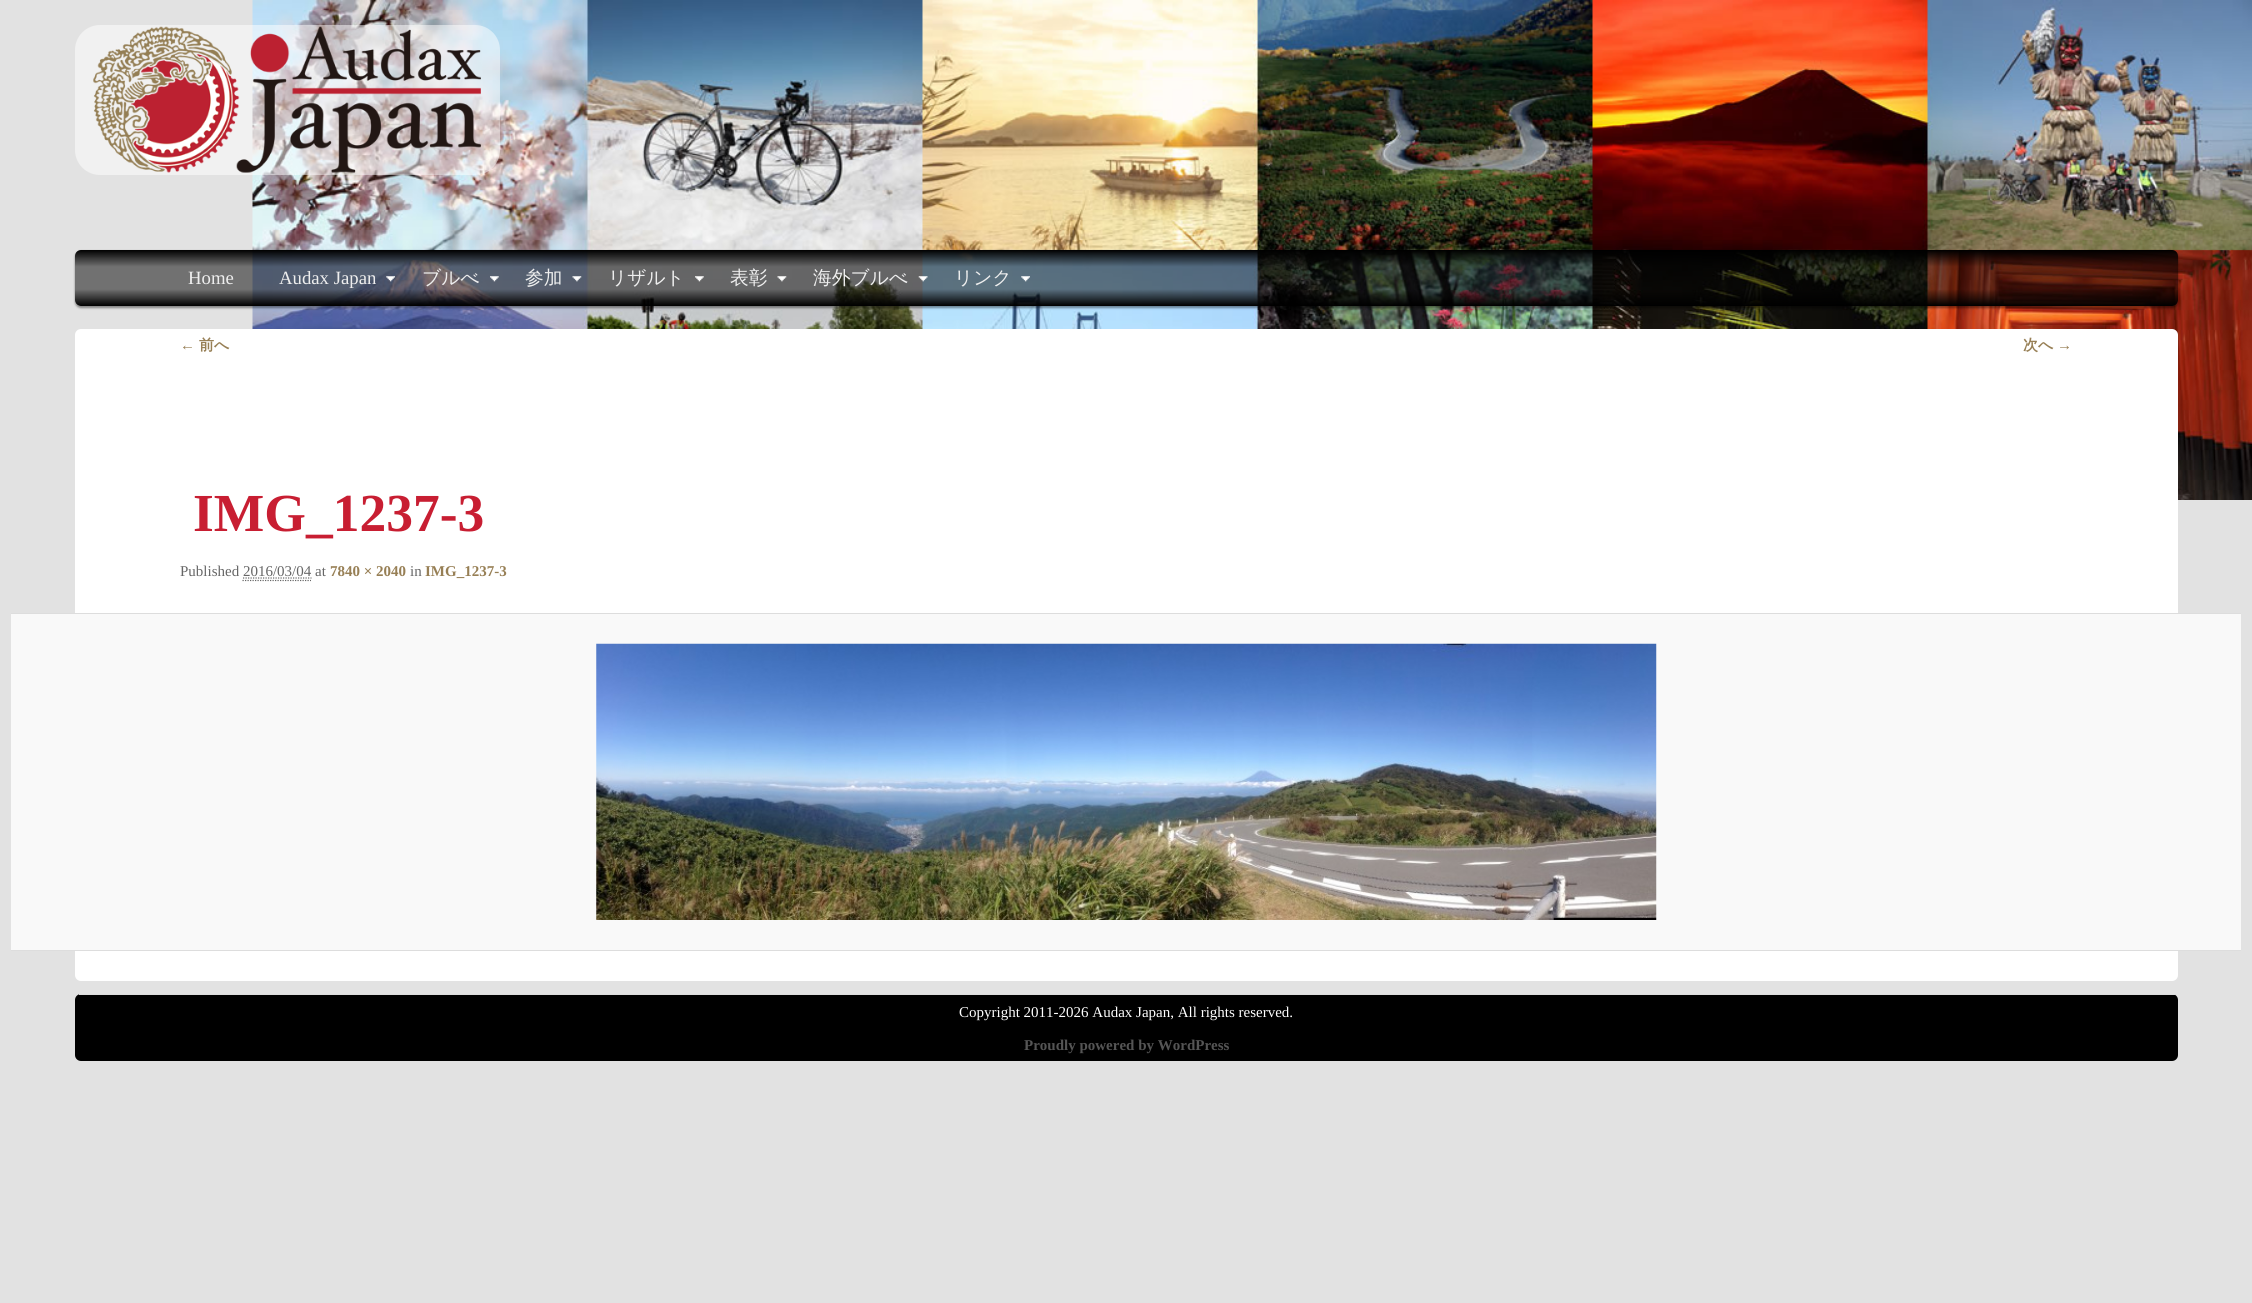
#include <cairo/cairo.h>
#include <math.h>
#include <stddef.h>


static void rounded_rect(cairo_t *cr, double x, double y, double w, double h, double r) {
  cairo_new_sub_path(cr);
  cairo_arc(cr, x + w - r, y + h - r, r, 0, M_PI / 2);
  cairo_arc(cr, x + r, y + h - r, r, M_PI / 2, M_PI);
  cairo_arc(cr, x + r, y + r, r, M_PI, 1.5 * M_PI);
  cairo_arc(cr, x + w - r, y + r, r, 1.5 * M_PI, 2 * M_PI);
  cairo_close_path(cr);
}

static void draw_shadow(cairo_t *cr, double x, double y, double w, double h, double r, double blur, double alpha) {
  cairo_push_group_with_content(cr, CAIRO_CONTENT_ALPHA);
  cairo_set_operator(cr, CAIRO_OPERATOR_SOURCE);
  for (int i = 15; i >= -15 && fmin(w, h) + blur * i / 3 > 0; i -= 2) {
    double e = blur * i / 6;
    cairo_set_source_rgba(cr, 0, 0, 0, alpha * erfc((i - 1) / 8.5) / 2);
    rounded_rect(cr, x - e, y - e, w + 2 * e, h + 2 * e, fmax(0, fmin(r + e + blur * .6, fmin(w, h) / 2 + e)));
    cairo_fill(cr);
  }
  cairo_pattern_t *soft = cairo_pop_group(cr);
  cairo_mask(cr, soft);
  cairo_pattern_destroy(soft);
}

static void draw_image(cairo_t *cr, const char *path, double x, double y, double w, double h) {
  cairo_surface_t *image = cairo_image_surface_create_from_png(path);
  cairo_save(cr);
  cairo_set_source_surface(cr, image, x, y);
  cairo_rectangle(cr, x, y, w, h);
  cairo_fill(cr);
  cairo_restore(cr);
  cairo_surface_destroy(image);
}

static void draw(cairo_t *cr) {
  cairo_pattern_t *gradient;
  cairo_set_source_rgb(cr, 226 / 255.0, 226 / 255.0, 226 / 255.0);
  cairo_paint(cr);
  draw_image(cr, "images/1.png", 252, 0, 2000, 500);
  cairo_set_source_rgba(cr, 1, 1, 1, 0.5);
  rounded_rect(cr, 75, 25, 425, 150, 25);
  cairo_fill(cr);
  draw_image(cr, "images/2.png", 93, 26, 388, 147);
  cairo_save(cr);
  cairo_set_fill_rule(cr, CAIRO_FILL_RULE_EVEN_ODD);
  cairo_new_path(cr);
  cairo_move_to(cr, 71, 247);
  cairo_line_to(cr, 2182, 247);
  cairo_line_to(cr, 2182, 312);
  cairo_line_to(cr, 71, 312);
  cairo_close_path(cr);
  cairo_move_to(cr, 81, 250);
  cairo_line_to(cr, 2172, 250);
  cairo_curve_to(cr, 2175.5, 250, 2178, 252.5, 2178, 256);
  cairo_line_to(cr, 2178, 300);
  cairo_curve_to(cr, 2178, 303.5, 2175.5, 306, 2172, 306);
  cairo_line_to(cr, 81, 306);
  cairo_curve_to(cr, 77.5, 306, 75, 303.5, 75, 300);
  cairo_line_to(cr, 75, 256);
  cairo_curve_to(cr, 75, 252.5, 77.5, 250, 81, 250);
  cairo_close_path(cr);
  cairo_clip(cr);
  cairo_set_source_rgb(cr, 0, 0, 0);
  draw_shadow(cr, 75, 251, 2103, 57, 6, 1, 0.4);
  cairo_restore(cr);
  gradient = cairo_pattern_create_linear(1126, 250, 1126, 306);
  cairo_pattern_add_color_stop_rgba(gradient, 0, 0, 0, 0, 1);
  cairo_pattern_add_color_stop_rgba(gradient, 0.3, 0, 0, 0, 0.5);
  cairo_pattern_add_color_stop_rgba(gradient, 0.7, 0, 0, 0, 0.5);
  cairo_pattern_add_color_stop_rgba(gradient, 1, 0, 0, 0, 1);
  cairo_set_source(cr, gradient);
  cairo_pattern_destroy(gradient);
  rounded_rect(cr, 75, 250, 2103, 56, 6);
  cairo_fill(cr);
  draw_image(cr, "images/3.png", 386, 276, 9, 6);
  draw_image(cr, "images/4.png", 490, 276, 9, 6);
  draw_image(cr, "images/5.png", 572, 276, 10, 6);
  draw_image(cr, "images/6.png", 695, 276, 9, 6);
  draw_image(cr, "images/7.png", 777, 276, 10, 6);
  draw_image(cr, "images/8.png", 918, 276, 10, 6);
  draw_image(cr, "images/9.png", 1021, 276, 9, 6);
  cairo_set_source_rgb(cr, 1, 1, 1);
  rounded_rect(cr, 75, 329, 2103, 652, 6);
  cairo_fill(cr);
  cairo_new_path(cr);
  cairo_move_to(cr, 243, 578);
  cairo_line_to(cr, 311.5, 578);
  cairo_set_source_rgb(cr, 102 / 255.0, 102 / 255.0, 102 / 255.0);
  cairo_set_line_width(cr, 1.2);
  cairo_set_dash(cr, (double[]){1.25, 1.25}, 2, 0);
  cairo_stroke(cr);
  cairo_new_path(cr);
  cairo_move_to(cr, 242.5, 580.5);
  cairo_line_to(cr, 311, 580.5);
  cairo_stroke(cr);
  cairo_set_source_rgb(cr, 249 / 255.0, 249 / 255.0, 249 / 255.0);
  cairo_rectangle(cr, 11, 614, 2230, 336);
  cairo_fill(cr);
  cairo_set_source_rgb(cr, 221 / 255.0, 221 / 255.0, 221 / 255.0);
  cairo_rectangle(cr, 11, 613, 2230, 1);
  cairo_fill(cr);
  cairo_rectangle(cr, 11, 950, 2230, 1);
  cairo_fill(cr);
  draw_image(cr, "images/10.png", 596, 643, 1061, 277);
  cairo_set_source_rgb(cr, 0, 0, 0);
  rounded_rect(cr, 75, 994, 2103, 67, 6);
  cairo_fill(cr);
  cairo_set_source_rgb(cr, 221 / 255.0, 221 / 255.0, 221 / 255.0);
  cairo_rectangle(cr, 79, 994, 2096, 1);
  cairo_fill(cr);
  cairo_select_font_face(cr, "Liberation Serif", CAIRO_FONT_SLANT_NORMAL, CAIRO_FONT_WEIGHT_NORMAL);
  cairo_set_font_size(cr, 18.75);
  cairo_set_source_rgb(cr, 238 / 255.0, 238 / 255.0, 238 / 255.0);
  cairo_move_to(cr, 188, 284);
  cairo_show_text(cr, "Home");
  cairo_move_to(cr, 279, 284);
  cairo_show_text(cr, "Audax Japan");
  cairo_select_font_face(cr, "WenQuanYi Zen Hei Medium", CAIRO_FONT_SLANT_NORMAL, CAIRO_FONT_WEIGHT_NORMAL);
  cairo_move_to(cr, 422, 284);
  cairo_show_text(cr, "ブルべ");
  cairo_move_to(cr, 525, 284);
  cairo_show_text(cr, "参加");
  cairo_move_to(cr, 608, 284);
  cairo_show_text(cr, "リザルト");
  cairo_move_to(cr, 730, 284);
  cairo_show_text(cr, "表彰");
  cairo_move_to(cr, 813, 284);
  cairo_show_text(cr, "海外ブルべ");
  cairo_move_to(cr, 954, 284);
  cairo_show_text(cr, "リンク");
  cairo_select_font_face(cr, "Liberation Serif", CAIRO_FONT_SLANT_NORMAL, CAIRO_FONT_WEIGHT_BOLD);
  cairo_set_font_size(cr, 15);
  cairo_set_source_rgb(cr, 151 / 255.0, 127 / 255.0, 85 / 255.0);
  cairo_move_to(cr, 180, 350);
  cairo_show_text(cr, "←");
  cairo_select_font_face(cr, "WenQuanYi Zen Hei", CAIRO_FONT_SLANT_NORMAL, CAIRO_FONT_WEIGHT_BOLD);
  cairo_move_to(cr, 199, 350);
  cairo_show_text(cr, "前へ");
  cairo_move_to(cr, 2023, 350);
  cairo_show_text(cr, "次へ");
  cairo_select_font_face(cr, "Liberation Serif", CAIRO_FONT_SLANT_NORMAL, CAIRO_FONT_WEIGHT_BOLD);
  cairo_move_to(cr, 2057, 350);
  cairo_show_text(cr, "→");
  cairo_set_font_size(cr, 53.5);
  cairo_set_source_rgb(cr, 200 / 255.0, 30 / 255.0, 50 / 255.0);
  cairo_move_to(cr, 193, 531);
  cairo_show_text(cr, "IMG_1237-3");
  cairo_select_font_face(cr, "Liberation Serif", CAIRO_FONT_SLANT_NORMAL, CAIRO_FONT_WEIGHT_NORMAL);
  cairo_set_font_size(cr, 15);
  cairo_set_source_rgb(cr, 102 / 255.0, 102 / 255.0, 102 / 255.0);
  cairo_move_to(cr, 180, 576);
  cairo_show_text(cr, "Published 2016/03/04 at");
  cairo_select_font_face(cr, "Liberation Serif", CAIRO_FONT_SLANT_NORMAL, CAIRO_FONT_WEIGHT_BOLD);
  cairo_set_source_rgb(cr, 151 / 255.0, 127 / 255.0, 85 / 255.0);
  cairo_move_to(cr, 330, 576);
  cairo_show_text(cr, "7840 × 2040");
  cairo_select_font_face(cr, "Liberation Serif", CAIRO_FONT_SLANT_NORMAL, CAIRO_FONT_WEIGHT_NORMAL);
  cairo_set_source_rgb(cr, 102 / 255.0, 102 / 255.0, 102 / 255.0);
  cairo_move_to(cr, 410, 576);
  cairo_show_text(cr, "in");
  cairo_select_font_face(cr, "Liberation Serif", CAIRO_FONT_SLANT_NORMAL, CAIRO_FONT_WEIGHT_BOLD);
  cairo_set_source_rgb(cr, 151 / 255.0, 127 / 255.0, 85 / 255.0);
  cairo_move_to(cr, 425, 576);
  cairo_show_text(cr, "IMG_1237-3");
  cairo_select_font_face(cr, "Liberation Serif", CAIRO_FONT_SLANT_NORMAL, CAIRO_FONT_WEIGHT_NORMAL);
  cairo_set_source_rgb(cr, 1, 1, 1);
  cairo_move_to(cr, 959, 1017);
  cairo_show_text(cr, "Copyright 2011-2026 Audax Japan, All rights reserved.");
  cairo_select_font_face(cr, "Liberation Serif", CAIRO_FONT_SLANT_NORMAL, CAIRO_FONT_WEIGHT_BOLD);
  cairo_set_source_rgb(cr, 85 / 255.0, 85 / 255.0, 85 / 255.0);
  cairo_move_to(cr, 1024, 1050);
  cairo_show_text(cr, "Proudly powered by WordPress");
}

int main(void) {
  cairo_surface_t *surface = cairo_image_surface_create(CAIRO_FORMAT_RGB24, 2252, 1303);
  cairo_t *cr = cairo_create(surface);
  cairo_font_options_t *options = cairo_font_options_create();
  cairo_font_options_set_hint_metrics(options, CAIRO_HINT_METRICS_OFF);
  cairo_font_options_set_hint_style(options, CAIRO_HINT_STYLE_NONE);
  cairo_set_font_options(cr, options);
  cairo_set_miter_limit(cr, 4);
  draw(cr);
  cairo_surface_write_to_png(surface, "out.png");
  cairo_font_options_destroy(options);
  cairo_destroy(cr);
  cairo_surface_destroy(surface);
  return 0;
}
